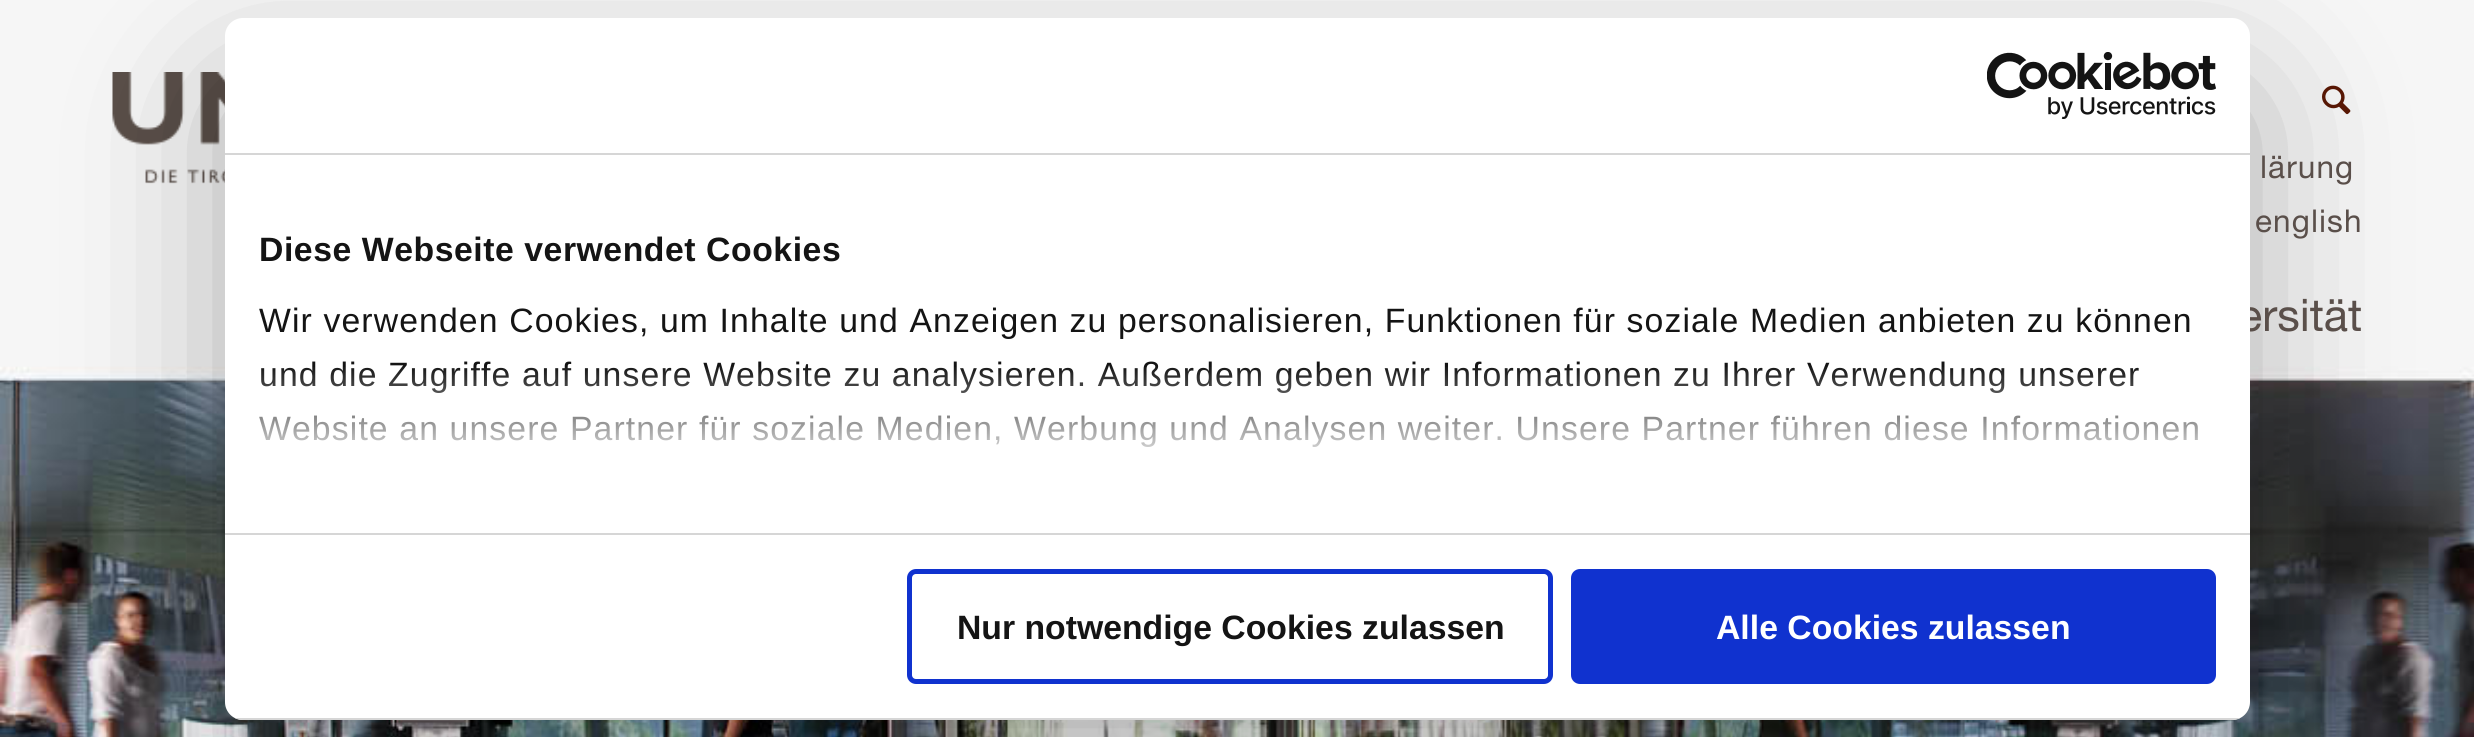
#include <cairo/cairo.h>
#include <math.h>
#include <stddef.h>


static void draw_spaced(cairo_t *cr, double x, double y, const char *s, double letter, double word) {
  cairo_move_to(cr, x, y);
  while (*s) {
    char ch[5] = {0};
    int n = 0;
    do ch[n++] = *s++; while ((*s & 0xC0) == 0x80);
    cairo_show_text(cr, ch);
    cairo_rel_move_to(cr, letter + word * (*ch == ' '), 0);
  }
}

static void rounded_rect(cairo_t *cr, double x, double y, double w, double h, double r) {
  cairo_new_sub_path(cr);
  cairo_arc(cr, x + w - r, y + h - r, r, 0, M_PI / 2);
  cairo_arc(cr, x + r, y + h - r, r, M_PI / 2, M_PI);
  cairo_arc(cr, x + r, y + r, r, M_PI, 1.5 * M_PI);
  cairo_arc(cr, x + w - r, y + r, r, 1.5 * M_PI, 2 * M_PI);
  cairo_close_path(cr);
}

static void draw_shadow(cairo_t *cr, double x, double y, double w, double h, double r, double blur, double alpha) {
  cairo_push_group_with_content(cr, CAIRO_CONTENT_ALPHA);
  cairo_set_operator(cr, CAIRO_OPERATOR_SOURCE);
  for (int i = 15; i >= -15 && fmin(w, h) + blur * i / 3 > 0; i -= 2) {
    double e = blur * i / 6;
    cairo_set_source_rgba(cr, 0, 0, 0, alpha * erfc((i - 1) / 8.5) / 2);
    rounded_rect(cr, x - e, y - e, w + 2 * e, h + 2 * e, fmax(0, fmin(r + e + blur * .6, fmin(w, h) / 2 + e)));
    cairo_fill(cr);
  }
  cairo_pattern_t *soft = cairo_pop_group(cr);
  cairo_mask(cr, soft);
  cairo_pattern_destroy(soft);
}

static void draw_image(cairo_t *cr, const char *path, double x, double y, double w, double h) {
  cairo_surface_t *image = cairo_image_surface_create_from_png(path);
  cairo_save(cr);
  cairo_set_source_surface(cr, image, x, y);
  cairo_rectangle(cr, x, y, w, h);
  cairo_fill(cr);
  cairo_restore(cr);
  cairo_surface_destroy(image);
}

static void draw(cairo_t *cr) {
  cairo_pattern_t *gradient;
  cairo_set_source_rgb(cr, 246 / 255.0, 246 / 255.0, 246 / 255.0);
  cairo_paint(cr);
  draw_image(cr, "images/2.png", 112, 72, 113, 112);
  draw_image(cr, "images/3.png", 2322, 85, 29, 30);
  draw_image(cr, "images/4.png", 0, 366, 2474, 371);
  cairo_set_source_rgb(cr, 0, 0, 0);
  draw_shadow(cr, 225, 90, 2025, 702, 18, 76.5, 0.3);
  cairo_select_font_face(cr, "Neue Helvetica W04", CAIRO_FONT_SLANT_NORMAL, CAIRO_FONT_WEIGHT_NORMAL);
  cairo_set_font_size(cr, 31.5);
  cairo_set_source_rgb(cr, 90 / 255.0, 79 / 255.0, 74 / 255.0);
  draw_spaced(cr, 2260, 178, "lärung", 1.12, 0);
  draw_spaced(cr, 2255, 232, "english", 1.12, 0);
  cairo_set_font_size(cr, 45);
  cairo_move_to(cr, 2238, 331);
  cairo_show_text(cr, "ersität");
  cairo_set_source_rgb(cr, 1, 1, 1);
  rounded_rect(cr, 225, 18, 2025, 702, 18);
  cairo_fill(cr);
  cairo_select_font_face(cr, "Liberation Sans", CAIRO_FONT_SLANT_NORMAL, CAIRO_FONT_WEIGHT_NORMAL);
  cairo_set_font_size(cr, 33.75);
  cairo_set_source_rgb(cr, 20 / 255.0, 20 / 255.0, 20 / 255.0);
  draw_spaced(cr, 259, 440, "Website an unsere Partner für soziale Medien, Werbung und Analysen weiter. Unsere Partner führen diese Informationen", 1.12, 0);
  draw_spaced(cr, 259, 386, "und die Zugriffe auf unsere Website zu analysieren. Außerdem geben wir Informationen zu Ihrer Verwendung unserer", 1.12, 0);
  gradient = cairo_pattern_create_linear(1223, 533, 1223, 365);
  cairo_pattern_add_color_stop_rgba(gradient, 0, 1, 1, 1, 1);
  cairo_pattern_add_color_stop_rgba(gradient, 0.5, 1, 1, 1, 0.8);
  cairo_pattern_add_color_stop_rgba(gradient, 1, 1, 1, 1, 0);
  cairo_set_source(cr, gradient);
  cairo_pattern_destroy(gradient);
  cairo_rectangle(cr, 259, 367, 1940, 80);
  cairo_fill(cr);
  cairo_set_source_rgb(cr, 16 / 255.0, 50 / 255.0, 207 / 255.0);
  rounded_rect(cr, 1573.5, 571.5, 640, 110, 6.5);
  cairo_fill_preserve(cr);
  cairo_set_line_width(cr, 5);
  cairo_stroke(cr);
  cairo_select_font_face(cr, "Liberation Sans", CAIRO_FONT_SLANT_NORMAL, CAIRO_FONT_WEIGHT_BOLD);
  cairo_set_source_rgb(cr, 1, 1, 1);
  cairo_move_to(cr, 1716, 639);
  cairo_show_text(cr, "Alle Cookies zulassen");
  rounded_rect(cr, 909.5, 571.5, 641, 110, 6.5);
  cairo_set_source_rgb(cr, 16 / 255.0, 50 / 255.0, 207 / 255.0);
  cairo_stroke(cr);
  cairo_set_source_rgb(cr, 20 / 255.0, 20 / 255.0, 20 / 255.0);
  cairo_move_to(cr, 957, 639);
  cairo_show_text(cr, "Nur notwendige Cookies zulassen");
  cairo_save(cr);
  rounded_rect(cr, 225, 18, 2025, 702, 18);
  cairo_clip(cr);
  cairo_set_source_rgb(cr, 214 / 255.0, 214 / 255.0, 214 / 255.0);
  cairo_rectangle(cr, 235, 718, 2005, 2);
  cairo_fill(cr);
  cairo_restore(cr);
  cairo_select_font_face(cr, "Liberation Sans", CAIRO_FONT_SLANT_NORMAL, CAIRO_FONT_WEIGHT_NORMAL);
  draw_spaced(cr, 259, 332, "Wir verwenden Cookies, um Inhalte und Anzeigen zu personalisieren, Funktionen für soziale Medien anbieten zu können", 1.12, 0);
  cairo_select_font_face(cr, "Liberation Sans", CAIRO_FONT_SLANT_NORMAL, CAIRO_FONT_WEIGHT_BOLD);
  draw_spaced(cr, 259, 261, "Diese Webseite verwendet Cookies", 0.55, 0);
  cairo_set_source_rgb(cr, 214 / 255.0, 214 / 255.0, 214 / 255.0);
  cairo_rectangle(cr, 225, 533, 2025, 2);
  cairo_fill(cr);
  draw_image(cr, "images/1.png", 1987, 52, 229, 67);
  cairo_rectangle(cr, 225, 153, 2025, 2);
  cairo_fill(cr);
}

int main(void) {
  cairo_surface_t *surface = cairo_image_surface_create(CAIRO_FORMAT_RGB24, 2474, 737);
  cairo_t *cr = cairo_create(surface);
  cairo_font_options_t *options = cairo_font_options_create();
  cairo_font_options_set_hint_metrics(options, CAIRO_HINT_METRICS_OFF);
  cairo_font_options_set_hint_style(options, CAIRO_HINT_STYLE_NONE);
  cairo_set_font_options(cr, options);
  cairo_set_miter_limit(cr, 4);
  draw(cr);
  cairo_surface_write_to_png(surface, "out.png");
  cairo_font_options_destroy(options);
  cairo_destroy(cr);
  cairo_surface_destroy(surface);
  return 0;
}
